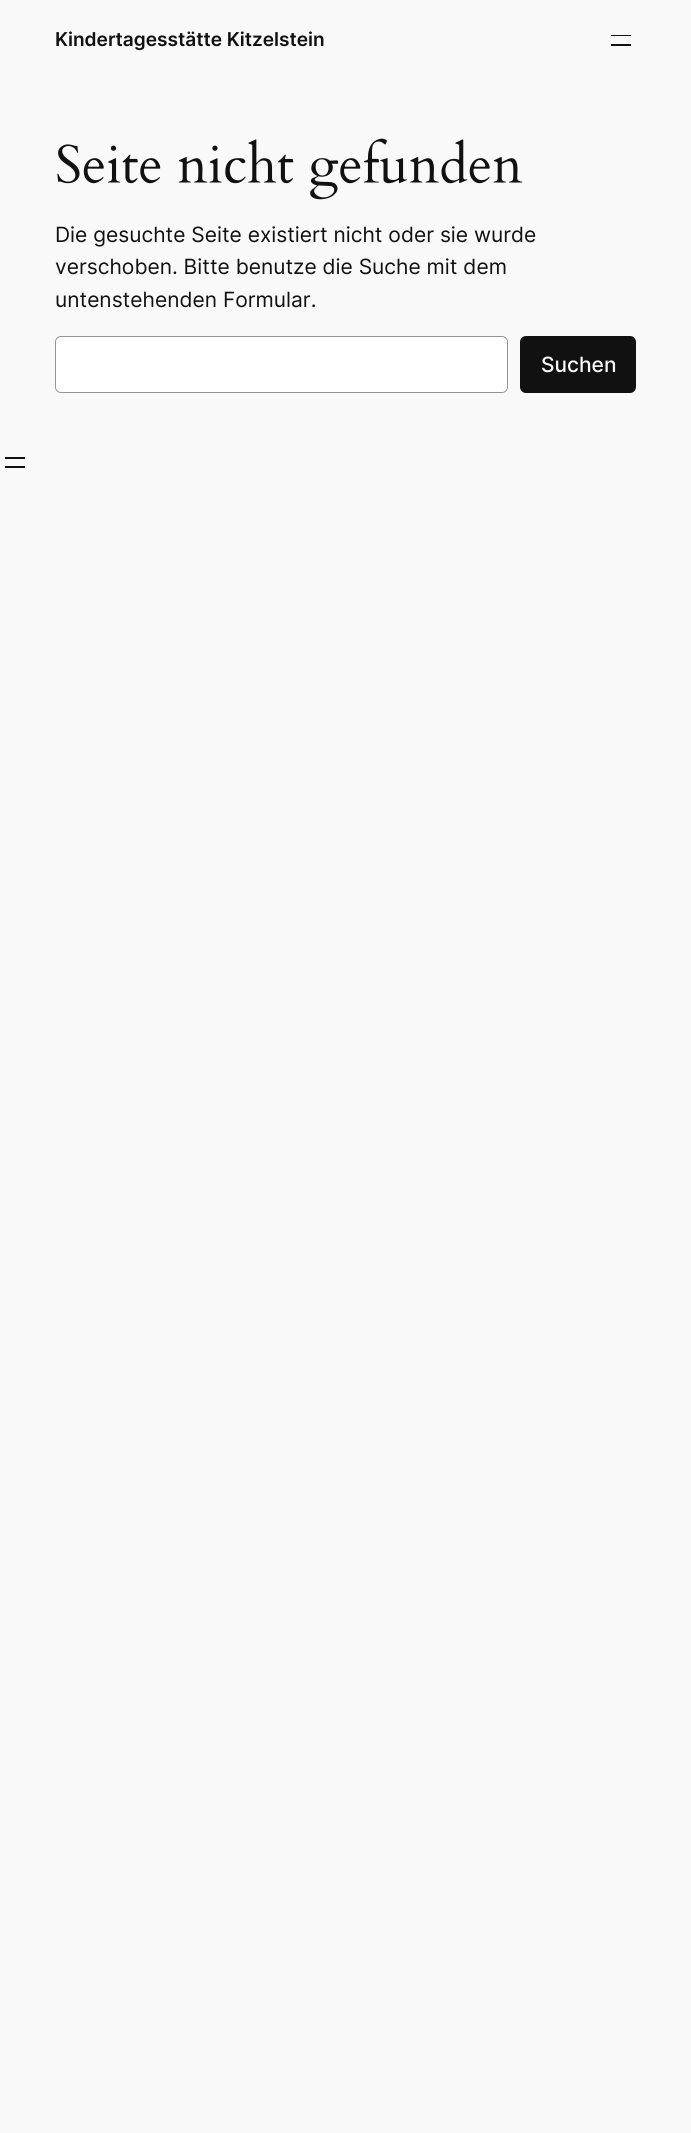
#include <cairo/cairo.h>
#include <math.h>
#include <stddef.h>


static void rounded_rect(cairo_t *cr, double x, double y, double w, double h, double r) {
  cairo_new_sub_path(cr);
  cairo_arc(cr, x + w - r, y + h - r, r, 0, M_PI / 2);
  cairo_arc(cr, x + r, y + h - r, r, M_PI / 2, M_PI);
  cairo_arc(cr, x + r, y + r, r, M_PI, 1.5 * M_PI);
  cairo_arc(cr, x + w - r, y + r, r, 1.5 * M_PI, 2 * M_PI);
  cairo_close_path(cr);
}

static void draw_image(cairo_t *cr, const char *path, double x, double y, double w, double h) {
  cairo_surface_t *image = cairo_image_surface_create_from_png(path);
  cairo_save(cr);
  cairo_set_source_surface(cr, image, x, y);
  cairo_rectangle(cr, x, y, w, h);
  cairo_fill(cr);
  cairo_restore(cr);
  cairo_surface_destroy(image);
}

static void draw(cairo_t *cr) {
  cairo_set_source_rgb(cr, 249 / 255.0, 249 / 255.0, 249 / 255.0);
  cairo_paint(cr);
  cairo_set_source_rgb(cr, 17 / 255.0, 17 / 255.0, 17 / 255.0);
  cairo_rectangle(cr, 611, 35, 20, 1);
  cairo_fill(cr);
  cairo_rectangle(cr, 611, 44, 20, 2);
  cairo_fill(cr);
  draw_image(cr, "images/1.png", 57, 138, 466, 62);
  cairo_set_source_rgb(cr, 1, 1, 1);
  rounded_rect(cr, 55.5, 336.5, 452, 56, 5.5);
  cairo_fill_preserve(cr);
  cairo_set_source_rgb(cr, 148 / 255.0, 148 / 255.0, 148 / 255.0);
  cairo_set_line_width(cr, 1);
  cairo_stroke(cr);
  cairo_set_source_rgb(cr, 17 / 255.0, 17 / 255.0, 17 / 255.0);
  rounded_rect(cr, 520, 336, 116, 57, 6);
  cairo_fill(cr);
  cairo_rectangle(cr, 5, 457, 20, 2);
  cairo_fill(cr);
  cairo_rectangle(cr, 5, 466, 20, 2);
  cairo_fill(cr);
  cairo_select_font_face(cr, "Inter SemiBold", CAIRO_FONT_SLANT_NORMAL, CAIRO_FONT_WEIGHT_NORMAL);
  cairo_set_font_size(cr, 19.1);
  cairo_move_to(cr, 55, 46);
  cairo_show_text(cr, "Kindertagesstätte Kitzelstein");
  cairo_select_font_face(cr, "Inter", CAIRO_FONT_SLANT_NORMAL, CAIRO_FONT_WEIGHT_NORMAL);
  cairo_set_font_size(cr, 21);
  cairo_move_to(cr, 55, 242);
  cairo_show_text(cr, "Die gesuchte Seite existiert nicht oder sie wurde");
  cairo_move_to(cr, 55, 274);
  cairo_show_text(cr, "verschoben. Bitte benutze die Suche mit dem");
  cairo_move_to(cr, 55, 307);
  cairo_show_text(cr, "untenstehenden Formular.");
  cairo_select_font_face(cr, "Inter Medium", CAIRO_FONT_SLANT_NORMAL, CAIRO_FONT_WEIGHT_NORMAL);
  cairo_set_source_rgb(cr, 249 / 255.0, 249 / 255.0, 249 / 255.0);
  cairo_move_to(cr, 541, 372);
  cairo_show_text(cr, "Suchen");
}

int main(void) {
  cairo_surface_t *surface = cairo_image_surface_create(CAIRO_FORMAT_RGB24, 691, 2133);
  cairo_t *cr = cairo_create(surface);
  cairo_font_options_t *options = cairo_font_options_create();
  cairo_font_options_set_hint_metrics(options, CAIRO_HINT_METRICS_OFF);
  cairo_font_options_set_hint_style(options, CAIRO_HINT_STYLE_NONE);
  cairo_set_font_options(cr, options);
  cairo_set_miter_limit(cr, 4);
  draw(cr);
  cairo_surface_write_to_png(surface, "out.png");
  cairo_font_options_destroy(options);
  cairo_destroy(cr);
  cairo_surface_destroy(surface);
  return 0;
}
